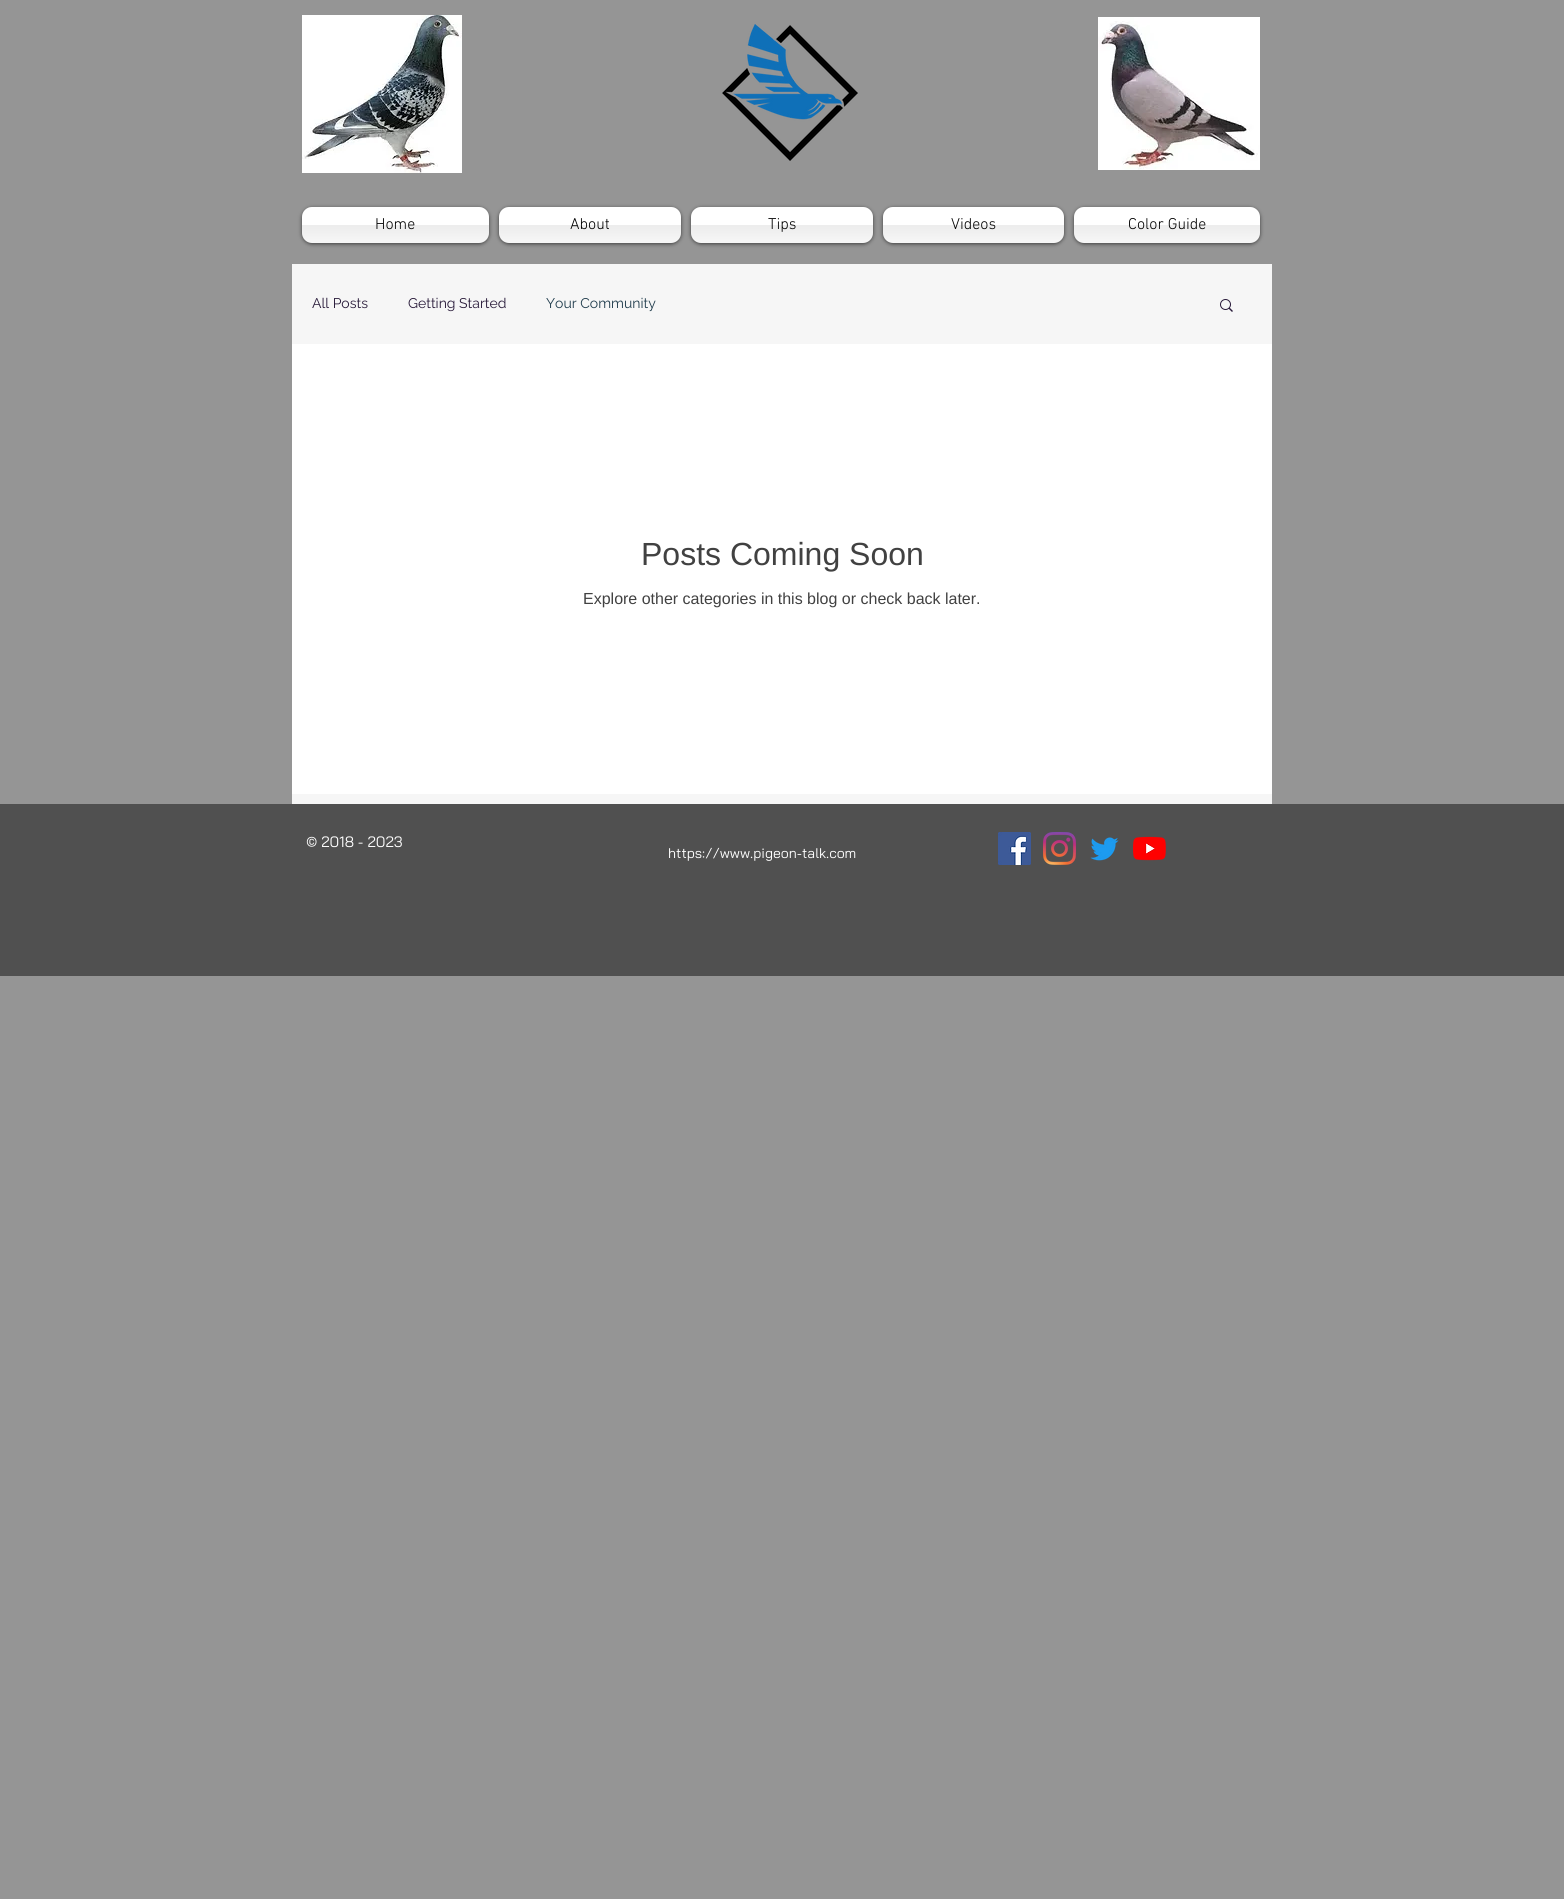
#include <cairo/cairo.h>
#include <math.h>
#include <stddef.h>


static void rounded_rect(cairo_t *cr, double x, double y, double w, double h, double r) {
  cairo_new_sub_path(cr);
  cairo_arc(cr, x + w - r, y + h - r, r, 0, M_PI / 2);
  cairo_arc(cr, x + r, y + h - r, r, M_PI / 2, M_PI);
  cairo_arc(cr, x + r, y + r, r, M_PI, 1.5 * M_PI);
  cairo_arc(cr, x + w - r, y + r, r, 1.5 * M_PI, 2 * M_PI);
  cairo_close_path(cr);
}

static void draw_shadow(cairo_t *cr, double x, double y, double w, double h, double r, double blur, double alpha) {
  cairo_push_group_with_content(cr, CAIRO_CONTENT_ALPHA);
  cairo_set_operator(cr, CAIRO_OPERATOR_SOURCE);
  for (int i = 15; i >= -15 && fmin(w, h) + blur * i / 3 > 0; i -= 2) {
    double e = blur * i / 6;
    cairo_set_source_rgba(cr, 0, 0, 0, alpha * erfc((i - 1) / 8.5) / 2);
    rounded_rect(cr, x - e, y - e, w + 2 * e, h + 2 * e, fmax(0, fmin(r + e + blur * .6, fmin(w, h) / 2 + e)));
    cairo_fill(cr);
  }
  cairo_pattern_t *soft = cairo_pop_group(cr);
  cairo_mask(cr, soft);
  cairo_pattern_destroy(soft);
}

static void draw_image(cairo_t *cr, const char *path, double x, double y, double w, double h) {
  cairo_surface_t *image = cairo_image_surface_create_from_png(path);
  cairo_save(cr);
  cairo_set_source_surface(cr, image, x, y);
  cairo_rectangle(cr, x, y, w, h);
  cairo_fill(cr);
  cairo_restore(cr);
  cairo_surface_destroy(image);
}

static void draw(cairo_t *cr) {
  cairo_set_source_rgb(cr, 149 / 255.0, 149 / 255.0, 149 / 255.0);
  cairo_paint(cr);
  draw_image(cr, "images/1.png", 302, 15, 160, 158);
  draw_image(cr, "images/2.png", 722, 24, 136, 137);
  draw_image(cr, "images/3.png", 1098, 17, 162, 153);
  cairo_set_source_rgb(cr, 0, 0, 0);
  draw_shadow(cr, 302, 208, 187, 36, 10, 2, 0.6);
  cairo_set_source_rgb(cr, 1, 1, 1);
  rounded_rect(cr, 302, 207, 187, 36, 10);
  cairo_fill(cr);
  draw_image(cr, "images/4.png", 302, 207, 187, 36);
  cairo_set_source_rgb(cr, 0, 0, 0);
  draw_shadow(cr, 499, 208, 182, 36, 10, 2, 0.6);
  cairo_set_source_rgb(cr, 1, 1, 1);
  rounded_rect(cr, 499, 207, 182, 36, 10);
  cairo_fill(cr);
  draw_image(cr, "images/5.png", 499, 207, 182, 36);
  cairo_set_source_rgb(cr, 0, 0, 0);
  draw_shadow(cr, 691, 208, 182, 36, 10, 2, 0.6);
  cairo_set_source_rgb(cr, 1, 1, 1);
  rounded_rect(cr, 691, 207, 182, 36, 10);
  cairo_fill(cr);
  draw_image(cr, "images/5.png", 691, 207, 182, 36);
  cairo_set_source_rgb(cr, 0, 0, 0);
  draw_shadow(cr, 883, 208, 181, 36, 10, 2, 0.6);
  cairo_set_source_rgb(cr, 1, 1, 1);
  rounded_rect(cr, 883, 207, 181, 36, 10);
  cairo_fill(cr);
  draw_image(cr, "images/6.png", 883, 207, 181, 36);
  cairo_set_source_rgb(cr, 0, 0, 0);
  draw_shadow(cr, 1074, 208, 186, 36, 10, 2, 0.6);
  cairo_set_source_rgb(cr, 1, 1, 1);
  rounded_rect(cr, 1074, 207, 186, 36, 10);
  cairo_fill(cr);
  draw_image(cr, "images/7.png", 1074, 207, 186, 36);
  cairo_set_source_rgb(cr, 246 / 255.0, 246 / 255.0, 246 / 255.0);
  cairo_rectangle(cr, 292, 264, 980, 540);
  cairo_fill(cr);
  draw_image(cr, "images/8.png", 1220, 299, 13, 13);
  cairo_set_source_rgb(cr, 1, 1, 1);
  cairo_rectangle(cr, 292, 344, 980, 450);
  cairo_fill(cr);
  cairo_set_source_rgb(cr, 80 / 255.0, 80 / 255.0, 80 / 255.0);
  cairo_rectangle(cr, 0, 804, 1564, 172);
  cairo_fill(cr);
  draw_image(cr, "images/9.png", 998, 832, 33, 33);
  draw_image(cr, "images/10.png", 1043, 832, 33, 33);
  draw_image(cr, "images/11.png", 1090, 837, 29, 24);
  draw_image(cr, "images/12.png", 1133, 836, 33, 25);
  cairo_select_font_face(cr, "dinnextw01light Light", CAIRO_FONT_SLANT_NORMAL, CAIRO_FONT_WEIGHT_NORMAL);
  cairo_set_font_size(cr, 16);
  cairo_set_source_rgb(cr, 0, 0, 0);
  cairo_move_to(cr, 375, 229);
  cairo_show_text(cr, "Home");
  cairo_move_to(cr, 570, 229);
  cairo_show_text(cr, "About");
  cairo_move_to(cr, 768, 229);
  cairo_show_text(cr, "Tips");
  cairo_move_to(cr, 951, 229);
  cairo_show_text(cr, "Videos");
  cairo_move_to(cr, 1128, 229);
  cairo_show_text(cr, "Color Guide");
  cairo_select_font_face(cr, "Raleway", CAIRO_FONT_SLANT_NORMAL, CAIRO_FONT_WEIGHT_NORMAL);
  cairo_set_font_size(cr, 14);
  cairo_set_source_rgb(cr, 40 / 255.0, 26 / 255.0, 57 / 255.0);
  cairo_move_to(cr, 312, 308);
  cairo_show_text(cr, "All Posts");
  cairo_move_to(cr, 408, 308);
  cairo_show_text(cr, "Getting Started");
  cairo_set_source_rgb(cr, 33 / 255.0, 61 / 255.0, 77 / 255.0);
  cairo_move_to(cr, 546, 308);
  cairo_show_text(cr, "Your Community");
  cairo_select_font_face(cr, "Liberation Sans", CAIRO_FONT_SLANT_NORMAL, CAIRO_FONT_WEIGHT_NORMAL);
  cairo_set_font_size(cr, 32);
  cairo_set_source_rgb(cr, 65 / 255.0, 65 / 255.0, 65 / 255.0);
  cairo_move_to(cr, 641, 565);
  cairo_show_text(cr, "Posts Coming Soon");
  cairo_set_font_size(cr, 16);
  cairo_move_to(cr, 583, 604);
  cairo_show_text(cr, "Explore other categories in this blog or check back later.");
  cairo_select_font_face(cr, "Bai Jamjuree", CAIRO_FONT_SLANT_NORMAL, CAIRO_FONT_WEIGHT_NORMAL);
  cairo_set_font_size(cr, 15);
  cairo_set_source_rgb(cr, 1, 1, 1);
  cairo_move_to(cr, 306, 847);
  cairo_show_text(cr, "© 2018 - 2023");
  cairo_set_font_size(cr, 14);
  cairo_move_to(cr, 668, 858);
  cairo_show_text(cr, "https://www.pigeon-talk.com");
}

int main(void) {
  cairo_surface_t *surface = cairo_image_surface_create(CAIRO_FORMAT_RGB24, 1564, 1899);
  cairo_t *cr = cairo_create(surface);
  cairo_font_options_t *options = cairo_font_options_create();
  cairo_font_options_set_hint_metrics(options, CAIRO_HINT_METRICS_OFF);
  cairo_font_options_set_hint_style(options, CAIRO_HINT_STYLE_NONE);
  cairo_set_font_options(cr, options);
  cairo_set_miter_limit(cr, 4);
  draw(cr);
  cairo_surface_write_to_png(surface, "out.png");
  cairo_font_options_destroy(options);
  cairo_destroy(cr);
  cairo_surface_destroy(surface);
  return 0;
}
